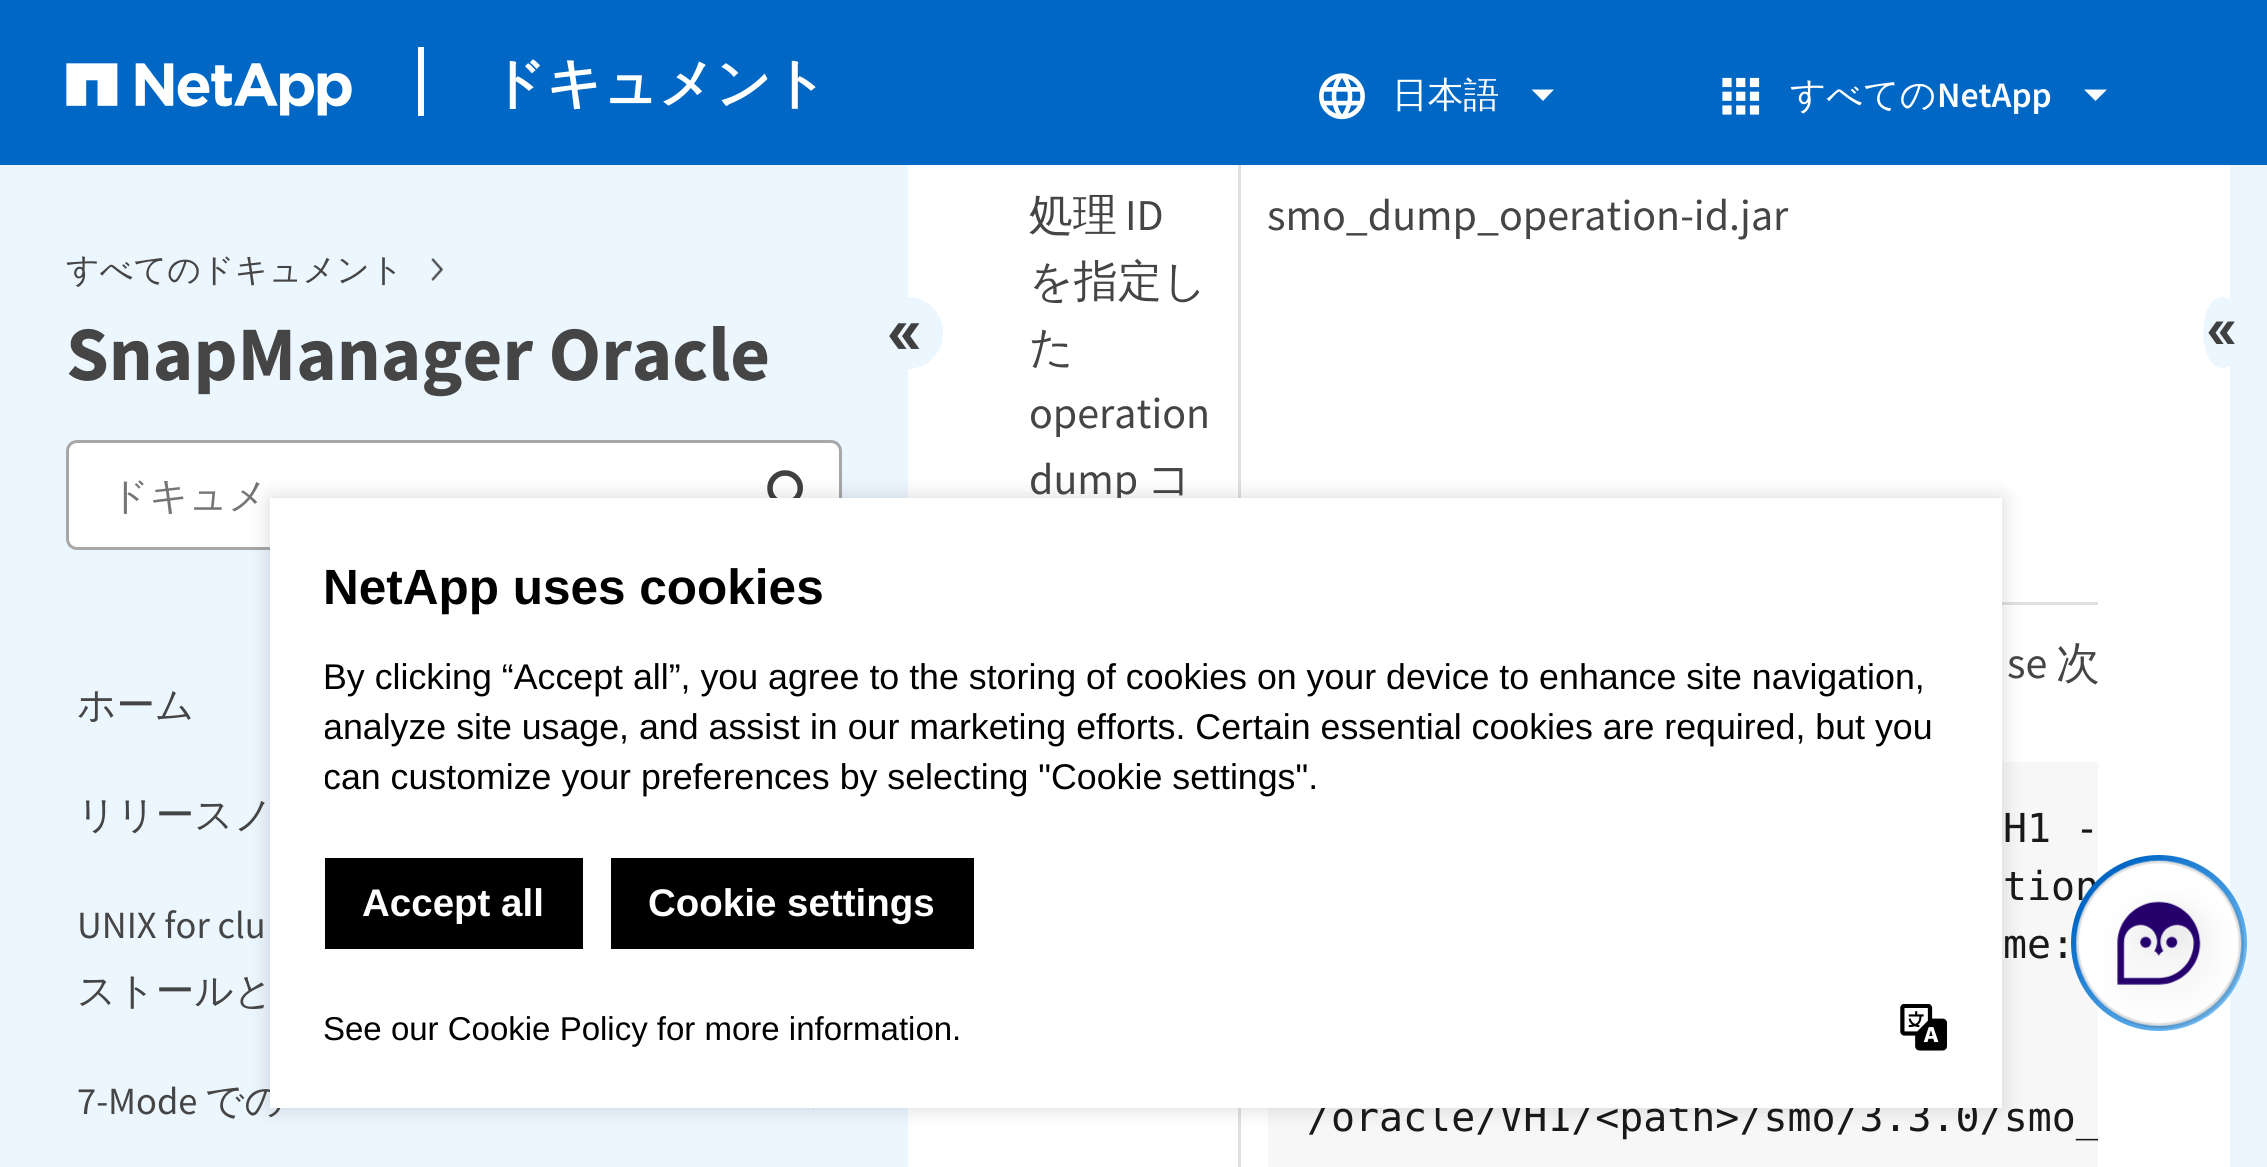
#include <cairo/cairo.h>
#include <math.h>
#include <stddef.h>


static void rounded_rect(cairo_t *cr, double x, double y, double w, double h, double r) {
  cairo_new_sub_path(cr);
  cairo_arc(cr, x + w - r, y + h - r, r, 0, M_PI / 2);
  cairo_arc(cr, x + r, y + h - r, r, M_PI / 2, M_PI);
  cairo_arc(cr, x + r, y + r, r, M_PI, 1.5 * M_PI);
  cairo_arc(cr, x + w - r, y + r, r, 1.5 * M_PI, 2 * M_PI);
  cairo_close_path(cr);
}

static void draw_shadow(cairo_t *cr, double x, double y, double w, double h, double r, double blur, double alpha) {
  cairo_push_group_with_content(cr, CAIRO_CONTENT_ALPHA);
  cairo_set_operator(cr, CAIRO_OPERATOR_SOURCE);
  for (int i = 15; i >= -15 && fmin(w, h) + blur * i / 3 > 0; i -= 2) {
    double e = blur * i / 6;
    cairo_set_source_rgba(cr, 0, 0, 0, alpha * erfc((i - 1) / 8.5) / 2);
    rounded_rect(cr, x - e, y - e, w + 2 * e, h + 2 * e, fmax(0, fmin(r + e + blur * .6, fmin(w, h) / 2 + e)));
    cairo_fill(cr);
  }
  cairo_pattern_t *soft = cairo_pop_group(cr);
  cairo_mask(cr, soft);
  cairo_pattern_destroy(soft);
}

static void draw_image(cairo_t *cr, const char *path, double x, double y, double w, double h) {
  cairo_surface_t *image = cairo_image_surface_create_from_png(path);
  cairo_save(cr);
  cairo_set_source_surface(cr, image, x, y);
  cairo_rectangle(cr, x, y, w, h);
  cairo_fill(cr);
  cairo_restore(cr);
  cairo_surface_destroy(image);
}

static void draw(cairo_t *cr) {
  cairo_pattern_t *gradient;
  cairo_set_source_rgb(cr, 1, 1, 1);
  cairo_paint(cr);
  cairo_set_source_rgb(cr, 224 / 255.0, 224 / 255.0, 224 / 255.0);
  cairo_rectangle(cr, 1238, 157, 3, 341);
  cairo_fill(cr);
  cairo_set_source_rgb(cr, 0, 103 / 255.0, 197 / 255.0);
  cairo_rectangle(cr, 0, 0, 2267, 165);
  cairo_fill(cr);
  draw_image(cr, "images/1.png", 66, 63, 286, 53);
  cairo_set_source_rgb(cr, 1, 1, 1);
  cairo_rectangle(cr, 418, 47, 6, 69);
  cairo_fill(cr);
  draw_image(cr, "images/2.png", 1319, 73, 46, 47);
  cairo_set_source_rgb(cr, 253 / 255.0, 253 / 255.0, 253 / 255.0);
  cairo_new_path(cr);
  cairo_move_to(cr, 1543, 101);
  cairo_line_to(cr, 1531.5, 89.5);
  cairo_line_to(cr, 1554, 89.5);
  cairo_close_path(cr);
  cairo_fill(cr);
  draw_image(cr, "images/3.png", 1722, 77, 38, 38);
  cairo_new_path(cr);
  cairo_move_to(cr, 2095.5, 101);
  cairo_line_to(cr, 2084, 89.5);
  cairo_line_to(cr, 2107, 89.5);
  cairo_close_path(cr);
  cairo_fill(cr);
  cairo_set_source_rgb(cr, 236 / 255.0, 246 / 255.0, 1);
  cairo_rectangle(cr, 0, 165, 908, 1002);
  cairo_fill(cr);
  draw_image(cr, "images/4.png", 431, 258, 12, 23);
  rounded_rect(cr, 872, 297, 71, 72, 35.5);
  cairo_fill(cr);
  draw_image(cr, "images/5.png", 889, 323, 31, 26);
  cairo_set_source_rgb(cr, 1, 1, 1);
  rounded_rect(cr, 67.5, 441.5, 773, 107, 9.5);
  cairo_fill_preserve(cr);
  cairo_set_source_rgb(cr, 167 / 255.0, 167 / 255.0, 167 / 255.0);
  cairo_set_line_width(cr, 3);
  cairo_stroke(cr);
  draw_image(cr, "images/6.png", 767, 470, 36, 28);
  draw_image(cr, "images/7.png", 812, 1108, 2, 1);
  cairo_set_source_rgb(cr, 224 / 255.0, 224 / 255.0, 224 / 255.0);
  cairo_rectangle(cr, 2002, 602, 96, 3);
  cairo_fill(cr);
  cairo_rectangle(cr, 1238, 1108, 3, 59);
  cairo_fill(cr);
  cairo_set_source_rgb(cr, 247 / 255.0, 247 / 255.0, 248 / 255.0);
  cairo_rectangle(cr, 1268, 762, 830, 405);
  cairo_fill(cr);
  cairo_set_source_rgb(cr, 236 / 255.0, 246 / 255.0, 1);
  cairo_rectangle(cr, 2230, 165, 37, 1002);
  cairo_fill(cr);
  cairo_new_path(cr);
  cairo_move_to(cr, 2222, 368);
  cairo_curve_to(cr, 2197, 368, 2197, 297, 2222, 297);
  cairo_curve_to(cr, 2247, 297, 2247, 368, 2222, 368);
  cairo_close_path(cr);
  cairo_fill(cr);
  draw_image(cr, "images/8.png", 2208, 321, 27, 23);
  cairo_set_source_rgb(cr, 0, 0, 0);
  draw_shadow(cr, 270, 498, 1732, 610, 0, 11, 0.15);
  cairo_select_font_face(cr, "WenQuanYi Zen Hei", CAIRO_FONT_SLANT_NORMAL, CAIRO_FONT_WEIGHT_BOLD);
  cairo_set_font_size(cr, 55);
  cairo_set_source_rgb(cr, 1, 1, 1);
  cairo_move_to(cr, 490, 102);
  cairo_show_text(cr, "ドキュメント");
  cairo_select_font_face(cr, "WenQuanYi Zen Hei Medium", CAIRO_FONT_SLANT_NORMAL, CAIRO_FONT_WEIGHT_NORMAL);
  cairo_set_font_size(cr, 35.75);
  cairo_move_to(cr, 1392, 107);
  cairo_show_text(cr, "日本語");
  cairo_move_to(cr, 1790, 107);
  cairo_show_text(cr, "すべての");
  cairo_select_font_face(cr, "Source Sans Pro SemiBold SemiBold", CAIRO_FONT_SLANT_NORMAL, CAIRO_FONT_WEIGHT_NORMAL);
  cairo_move_to(cr, 1937, 107);
  cairo_show_text(cr, "NetApp");
  cairo_select_font_face(cr, "WenQuanYi Zen Hei Medium", CAIRO_FONT_SLANT_NORMAL, CAIRO_FONT_WEIGHT_NORMAL);
  cairo_set_font_size(cr, 33);
  cairo_set_source_rgb(cr, 69 / 255.0, 69 / 255.0, 69 / 255.0);
  cairo_move_to(cr, 66, 281);
  cairo_show_text(cr, "すべてのドキュメント");
  cairo_select_font_face(cr, "Source Sans Pro", CAIRO_FONT_SLANT_NORMAL, CAIRO_FONT_WEIGHT_BOLD);
  cairo_set_font_size(cr, 77);
  cairo_move_to(cr, 66, 380);
  cairo_show_text(cr, "SnapManager Oracle");
  cairo_select_font_face(cr, "WenQuanYi Zen Hei Medium", CAIRO_FONT_SLANT_NORMAL, CAIRO_FONT_WEIGHT_NORMAL);
  cairo_set_font_size(cr, 38.5);
  cairo_set_source_rgb(cr, 117 / 255.0, 117 / 255.0, 117 / 255.0);
  cairo_move_to(cr, 110, 509);
  cairo_show_text(cr, "ドキュメ");
  cairo_set_source_rgb(cr, 69 / 255.0, 69 / 255.0, 69 / 255.0);
  cairo_move_to(cr, 77, 718);
  cairo_show_text(cr, "ホーム");
  cairo_move_to(cr, 77, 828);
  cairo_show_text(cr, "リリースノ");
  cairo_select_font_face(cr, "Source Sans Pro", CAIRO_FONT_SLANT_NORMAL, CAIRO_FONT_WEIGHT_NORMAL);
  cairo_move_to(cr, 77, 938);
  cairo_show_text(cr, "UNIX for clu");
  cairo_select_font_face(cr, "WenQuanYi Zen Hei Medium", CAIRO_FONT_SLANT_NORMAL, CAIRO_FONT_WEIGHT_NORMAL);
  cairo_move_to(cr, 77, 1004);
  cairo_show_text(cr, "ストールと");
  cairo_select_font_face(cr, "Source Sans Pro", CAIRO_FONT_SLANT_NORMAL, CAIRO_FONT_WEIGHT_NORMAL);
  cairo_move_to(cr, 77, 1114);
  cairo_show_text(cr, "7-Mode");
  cairo_select_font_face(cr, "WenQuanYi Zen Hei Medium", CAIRO_FONT_SLANT_NORMAL, CAIRO_FONT_WEIGHT_NORMAL);
  cairo_move_to(cr, 205, 1114);
  cairo_show_text(cr, "での");
  cairo_set_font_size(cr, 44);
  cairo_move_to(cr, 1029, 230);
  cairo_show_text(cr, "処理");
  cairo_select_font_face(cr, "Source Sans Pro", CAIRO_FONT_SLANT_NORMAL, CAIRO_FONT_WEIGHT_NORMAL);
  cairo_move_to(cr, 1125, 230);
  cairo_show_text(cr, "ID");
  cairo_select_font_face(cr, "WenQuanYi Zen Hei Medium", CAIRO_FONT_SLANT_NORMAL, CAIRO_FONT_WEIGHT_NORMAL);
  cairo_move_to(cr, 1029, 296);
  cairo_show_text(cr, "を指定し");
  cairo_move_to(cr, 1029, 362);
  cairo_show_text(cr, "た");
  cairo_select_font_face(cr, "Source Sans Pro", CAIRO_FONT_SLANT_NORMAL, CAIRO_FONT_WEIGHT_NORMAL);
  cairo_move_to(cr, 1029, 428);
  cairo_show_text(cr, "operation");
  cairo_move_to(cr, 1029, 494);
  cairo_show_text(cr, "dump");
  cairo_select_font_face(cr, "WenQuanYi Zen Hei Medium", CAIRO_FONT_SLANT_NORMAL, CAIRO_FONT_WEIGHT_NORMAL);
  cairo_move_to(cr, 1147, 494);
  cairo_show_text(cr, "コ");
  cairo_select_font_face(cr, "Source Sans Pro", CAIRO_FONT_SLANT_NORMAL, CAIRO_FONT_WEIGHT_NORMAL);
  cairo_move_to(cr, 1267, 230);
  cairo_show_text(cr, "smo_dump_operation-id.jar");
  cairo_move_to(cr, 2007, 678);
  cairo_show_text(cr, "se");
  cairo_select_font_face(cr, "WenQuanYi Zen Hei Medium", CAIRO_FONT_SLANT_NORMAL, CAIRO_FONT_WEIGHT_NORMAL);
  cairo_move_to(cr, 2056, 678);
  cairo_show_text(cr, "次");
  cairo_select_font_face(cr, "DejaVu Sans Mono", CAIRO_FONT_SLANT_NORMAL, CAIRO_FONT_WEIGHT_NORMAL);
  cairo_set_font_size(cr, 39.9);
  cairo_set_source_rgb(cr, 25 / 255.0, 25 / 255.0, 25 / 255.0);
  cairo_move_to(cr, 2003, 842);
  cairo_show_text(cr, "H1 -");
  cairo_move_to(cr, 2003, 900);
  cairo_show_text(cr, "tion");
  cairo_move_to(cr, 2003, 958);
  cairo_show_text(cr, "me:");
  cairo_save(cr);
  cairo_rectangle(cr, 1001, 0, 1097, 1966);
  cairo_clip(cr);
  cairo_move_to(cr, 1307, 1131);
  cairo_show_text(cr, "/oracle/VH1/<path>/smo/3.3.0/smo_");
  cairo_restore(cr);
  gradient = cairo_pattern_create_linear(2071, 855, 2247, 1031);
  cairo_pattern_add_color_stop_rgba(gradient, 0.18, 0, 103 / 255.0, 197 / 255.0, 1);
  cairo_pattern_add_color_stop_rgba(gradient, 0.89, 122 / 255.0, 195 / 255.0, 250 / 255.0, 1);
  cairo_set_source(cr, gradient);
  cairo_pattern_destroy(gradient);
  cairo_new_path(cr);
  cairo_arc(cr, 2159, 943, 88, 0, 2 * M_PI);
  cairo_fill(cr);
  draw_image(cr, "images/9.png", 2076, 860, 169, 169);
  cairo_set_source_rgb(cr, 1, 1, 1);
  cairo_rectangle(cr, 270, 498, 1732, 610);
  cairo_fill(cr);
  cairo_select_font_face(cr, "Liberation Sans", CAIRO_FONT_SLANT_NORMAL, CAIRO_FONT_WEIGHT_BOLD);
  cairo_set_font_size(cr, 49.5);
  cairo_set_source_rgb(cr, 0, 0, 0);
  cairo_move_to(cr, 323, 604);
  cairo_show_text(cr, "NetApp uses cookies");
  cairo_select_font_face(cr, "Liberation Sans", CAIRO_FONT_SLANT_NORMAL, CAIRO_FONT_WEIGHT_NORMAL);
  cairo_set_font_size(cr, 35.75);
  cairo_move_to(cr, 323, 689);
  cairo_show_text(cr, "By clicking “Accept all”, you agree to the storing of cookies on your device to enhance site navigation,");
  cairo_save(cr);
  cairo_rectangle(cr, 325, 553, 1622, 423);
  cairo_clip(cr);
  cairo_move_to(cr, 323, 739);
  cairo_show_text(cr, "analyze site usage, and assist in our marketing efforts. Certain essential cookies are required, but you");
  cairo_move_to(cr, 323, 789);
  cairo_show_text(cr, "can customize your preferences by selecting \"Cookie settings\".");
  cairo_restore(cr);
  cairo_rectangle(cr, 325, 858, 258, 91);
  cairo_fill(cr);
  cairo_select_font_face(cr, "Liberation Sans", CAIRO_FONT_SLANT_NORMAL, CAIRO_FONT_WEIGHT_BOLD);
  cairo_set_font_size(cr, 38.5);
  cairo_set_source_rgb(cr, 1, 1, 1);
  cairo_move_to(cr, 362, 916);
  cairo_show_text(cr, "Accept all");
  cairo_set_source_rgb(cr, 0, 0, 0);
  cairo_rectangle(cr, 611, 858, 363, 91);
  cairo_fill(cr);
  cairo_set_source_rgb(cr, 1, 1, 1);
  cairo_move_to(cr, 648, 916);
  cairo_show_text(cr, "Cookie settings");
  cairo_select_font_face(cr, "Liberation Sans", CAIRO_FONT_SLANT_NORMAL, CAIRO_FONT_WEIGHT_NORMAL);
  cairo_set_font_size(cr, 33);
  cairo_set_source_rgb(cr, 0, 0, 0);
  cairo_move_to(cr, 323, 1040);
  cairo_show_text(cr, "See our Cookie Policy for more information.");
  draw_image(cr, "images/10.png", 1900, 1004, 47, 47);
}

int main(void) {
  cairo_surface_t *surface = cairo_image_surface_create(CAIRO_FORMAT_RGB24, 2267, 1167);
  cairo_t *cr = cairo_create(surface);
  cairo_font_options_t *options = cairo_font_options_create();
  cairo_font_options_set_hint_metrics(options, CAIRO_HINT_METRICS_OFF);
  cairo_font_options_set_hint_style(options, CAIRO_HINT_STYLE_NONE);
  cairo_set_font_options(cr, options);
  cairo_set_miter_limit(cr, 4);
  draw(cr);
  cairo_surface_write_to_png(surface, "out.png");
  cairo_font_options_destroy(options);
  cairo_destroy(cr);
  cairo_surface_destroy(surface);
  return 0;
}
